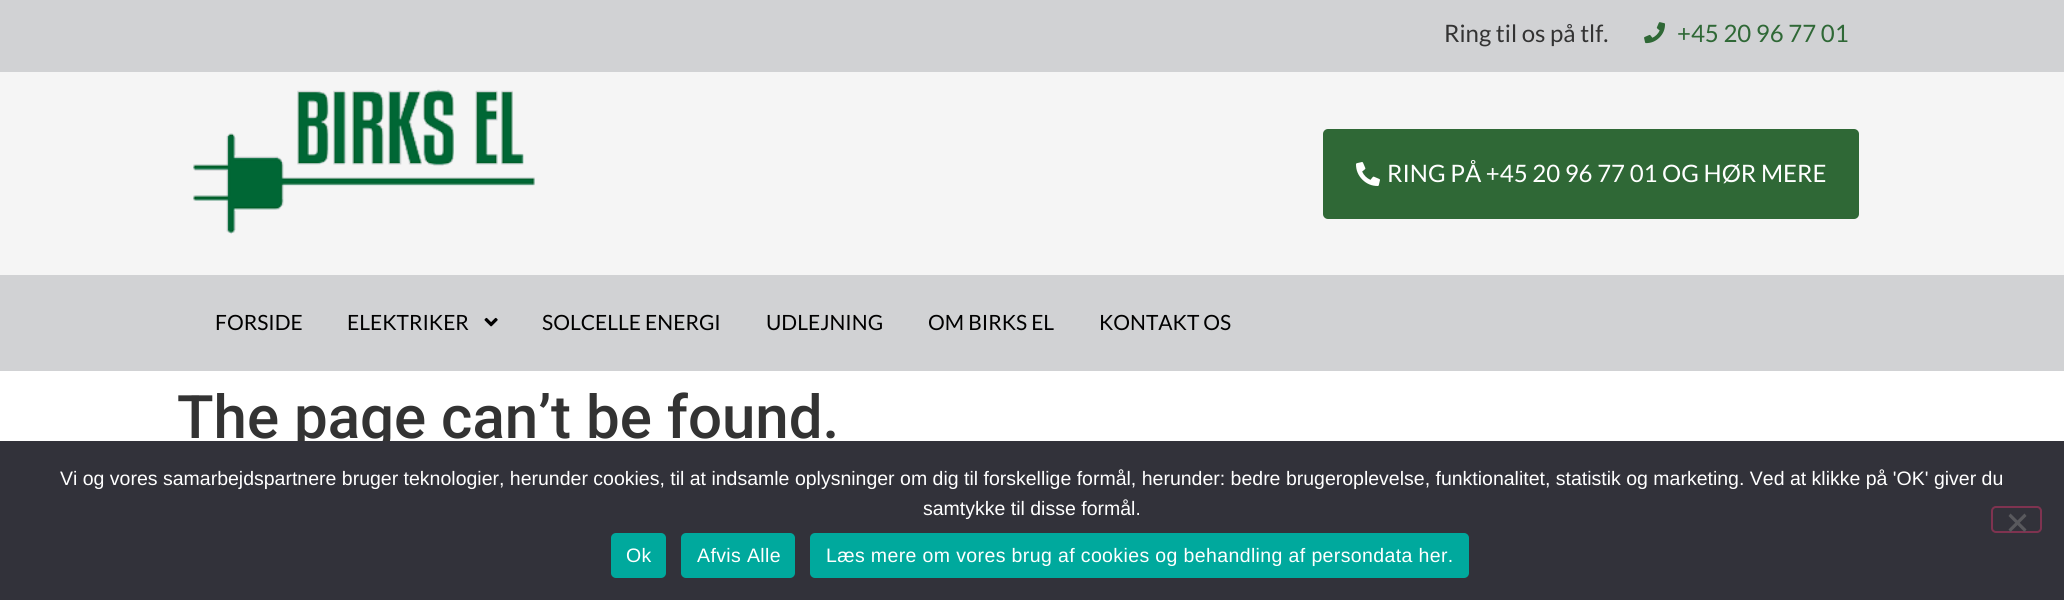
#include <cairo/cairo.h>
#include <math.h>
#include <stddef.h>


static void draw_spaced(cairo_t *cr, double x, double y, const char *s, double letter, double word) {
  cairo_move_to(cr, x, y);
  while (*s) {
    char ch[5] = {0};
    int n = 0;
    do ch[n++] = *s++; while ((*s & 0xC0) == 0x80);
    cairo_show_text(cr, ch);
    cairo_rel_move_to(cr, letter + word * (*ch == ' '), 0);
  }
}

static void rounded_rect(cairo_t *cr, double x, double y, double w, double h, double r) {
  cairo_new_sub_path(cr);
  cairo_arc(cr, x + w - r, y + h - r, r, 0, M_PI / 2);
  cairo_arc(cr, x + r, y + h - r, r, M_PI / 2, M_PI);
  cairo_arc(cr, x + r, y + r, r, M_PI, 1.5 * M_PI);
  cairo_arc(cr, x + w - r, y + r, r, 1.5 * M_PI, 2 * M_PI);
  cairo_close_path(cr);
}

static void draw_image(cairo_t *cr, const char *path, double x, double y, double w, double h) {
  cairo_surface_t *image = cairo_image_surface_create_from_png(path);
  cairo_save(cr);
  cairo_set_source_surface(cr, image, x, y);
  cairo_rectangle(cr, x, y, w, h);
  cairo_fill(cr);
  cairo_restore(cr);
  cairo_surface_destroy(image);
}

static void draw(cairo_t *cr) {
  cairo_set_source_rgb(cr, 1, 1, 1);
  cairo_paint(cr);
  cairo_set_source_rgb(cr, 209 / 255.0, 210 / 255.0, 212 / 255.0);
  cairo_rectangle(cr, 0, 0, 2064, 72);
  cairo_fill(cr);
  draw_image(cr, "images/1.png", 1644, 22, 21, 22);
  cairo_set_source_rgb(cr, 245 / 255.0, 245 / 255.0, 245 / 255.0);
  cairo_rectangle(cr, 0, 72, 2064, 203);
  cairo_fill(cr);
  draw_image(cr, "images/2.png", 193, 89, 342, 145);
  cairo_set_source_rgb(cr, 47 / 255.0, 104 / 255.0, 54 / 255.0);
  rounded_rect(cr, 1323, 129, 536, 90, 5);
  cairo_fill(cr);
  draw_image(cr, "images/3.png", 1356, 162, 24, 24);
  cairo_set_source_rgb(cr, 209 / 255.0, 210 / 255.0, 212 / 255.0);
  cairo_rectangle(cr, 0, 275, 2064, 96);
  cairo_fill(cr);
  draw_image(cr, "images/4.png", 484, 317, 14, 10);
  cairo_select_font_face(cr, "Lato", CAIRO_FONT_SLANT_NORMAL, CAIRO_FONT_WEIGHT_NORMAL);
  cairo_set_font_size(cr, 24);
  cairo_set_source_rgb(cr, 51 / 255.0, 51 / 255.0, 51 / 255.0);
  cairo_move_to(cr, 1444, 42);
  cairo_show_text(cr, "Ring til os på tlf.");
  cairo_set_source_rgb(cr, 47 / 255.0, 104 / 255.0, 54 / 255.0);
  cairo_move_to(cr, 1677, 42);
  cairo_show_text(cr, "+45 20 96 77 01");
  cairo_set_source_rgb(cr, 1, 1, 1);
  cairo_move_to(cr, 1387, 182);
  cairo_show_text(cr, "RING PÅ +45 20 96 77 01 OG HØR MERE");
  cairo_set_font_size(cr, 21);
  cairo_set_source_rgb(cr, 0, 0, 0);
  cairo_move_to(cr, 215, 330);
  cairo_show_text(cr, "FORSIDE");
  cairo_move_to(cr, 347, 330);
  cairo_show_text(cr, "ELEKTRIKER");
  cairo_move_to(cr, 542, 330);
  cairo_show_text(cr, "SOLCELLE ENERGI");
  cairo_move_to(cr, 766, 330);
  cairo_show_text(cr, "UDLEJNING");
  cairo_move_to(cr, 928, 330);
  cairo_show_text(cr, "OM BIRKS EL");
  cairo_move_to(cr, 1099, 330);
  cairo_show_text(cr, "KONTAKT OS");
  cairo_select_font_face(cr, "Roboto Medium", CAIRO_FONT_SLANT_NORMAL, CAIRO_FONT_WEIGHT_NORMAL);
  cairo_set_font_size(cr, 60);
  cairo_set_source_rgb(cr, 51 / 255.0, 51 / 255.0, 51 / 255.0);
  cairo_move_to(cr, 177, 438);
  cairo_show_text(cr, "The page can’t be found.");
  cairo_set_source_rgb(cr, 50 / 255.0, 50 / 255.0, 58 / 255.0);
  cairo_rectangle(cr, 0, 441, 2064, 159);
  cairo_fill(cr);
  cairo_select_font_face(cr, "Liberation Sans", CAIRO_FONT_SLANT_NORMAL, CAIRO_FONT_WEIGHT_NORMAL);
  cairo_set_font_size(cr, 19.5);
  cairo_set_source_rgb(cr, 1, 1, 1);
  cairo_move_to(cr, 60, 485);
  cairo_show_text(cr, "Vi og vores samarbejdspartnere bruger teknologier, herunder cookies, til at indsamle oplysninger om dig til forskellige formål, herunder: bedre brugeroplevelse, funktionalitet, statistik og marketing. Ved at klikke på 'OK' giver du");
  cairo_move_to(cr, 923, 515);
  cairo_show_text(cr, "samtykke til disse formål.");
  rounded_rect(cr, 1992, 507, 49, 25, 4);
  cairo_set_source_rgb(cr, 127 / 255.0, 51 / 255.0, 80 / 255.0);
  cairo_stroke(cr);
  cairo_set_source_rgb(cr, 89 / 255.0, 89 / 255.0, 93 / 255.0);
  cairo_new_path(cr);
  cairo_move_to(cr, 2024.5, 513.5);
  cairo_line_to(cr, 2026.5, 516);
  cairo_line_to(cr, 2010.5, 532);
  cairo_line_to(cr, 2008.5, 529.5);
  cairo_close_path(cr);
  cairo_fill(cr);
  cairo_new_path(cr);
  cairo_move_to(cr, 2008.5, 516);
  cairo_line_to(cr, 2010.5, 513.5);
  cairo_line_to(cr, 2026.5, 529.5);
  cairo_line_to(cr, 2024.5, 532);
  cairo_close_path(cr);
  cairo_fill(cr);
  cairo_set_source_rgb(cr, 0, 169 / 255.0, 157 / 255.0);
  rounded_rect(cr, 611, 533, 55, 45, 5);
  cairo_fill(cr);
  cairo_set_source_rgb(cr, 1, 1, 1);
  draw_spaced(cr, 626, 562, "Ok", 0.38, 0);
  cairo_set_source_rgb(cr, 0, 169 / 255.0, 157 / 255.0);
  rounded_rect(cr, 681, 533, 114, 45, 5);
  cairo_fill(cr);
  cairo_set_source_rgb(cr, 1, 1, 1);
  draw_spaced(cr, 697, 562, "Afvis Alle", 0.38, 0);
  cairo_set_source_rgb(cr, 0, 169 / 255.0, 157 / 255.0);
  rounded_rect(cr, 810, 533, 659, 45, 5);
  cairo_fill(cr);
  cairo_set_source_rgb(cr, 1, 1, 1);
  draw_spaced(cr, 826, 562, "Læs mere om vores brug af cookies og behandling af persondata her.", 0.38, 0);
}

int main(void) {
  cairo_surface_t *surface = cairo_image_surface_create(CAIRO_FORMAT_RGB24, 2064, 600);
  cairo_t *cr = cairo_create(surface);
  cairo_font_options_t *options = cairo_font_options_create();
  cairo_font_options_set_hint_metrics(options, CAIRO_HINT_METRICS_OFF);
  cairo_font_options_set_hint_style(options, CAIRO_HINT_STYLE_NONE);
  cairo_set_font_options(cr, options);
  cairo_set_miter_limit(cr, 4);
  draw(cr);
  cairo_surface_write_to_png(surface, "out.png");
  cairo_font_options_destroy(options);
  cairo_destroy(cr);
  cairo_surface_destroy(surface);
  return 0;
}
